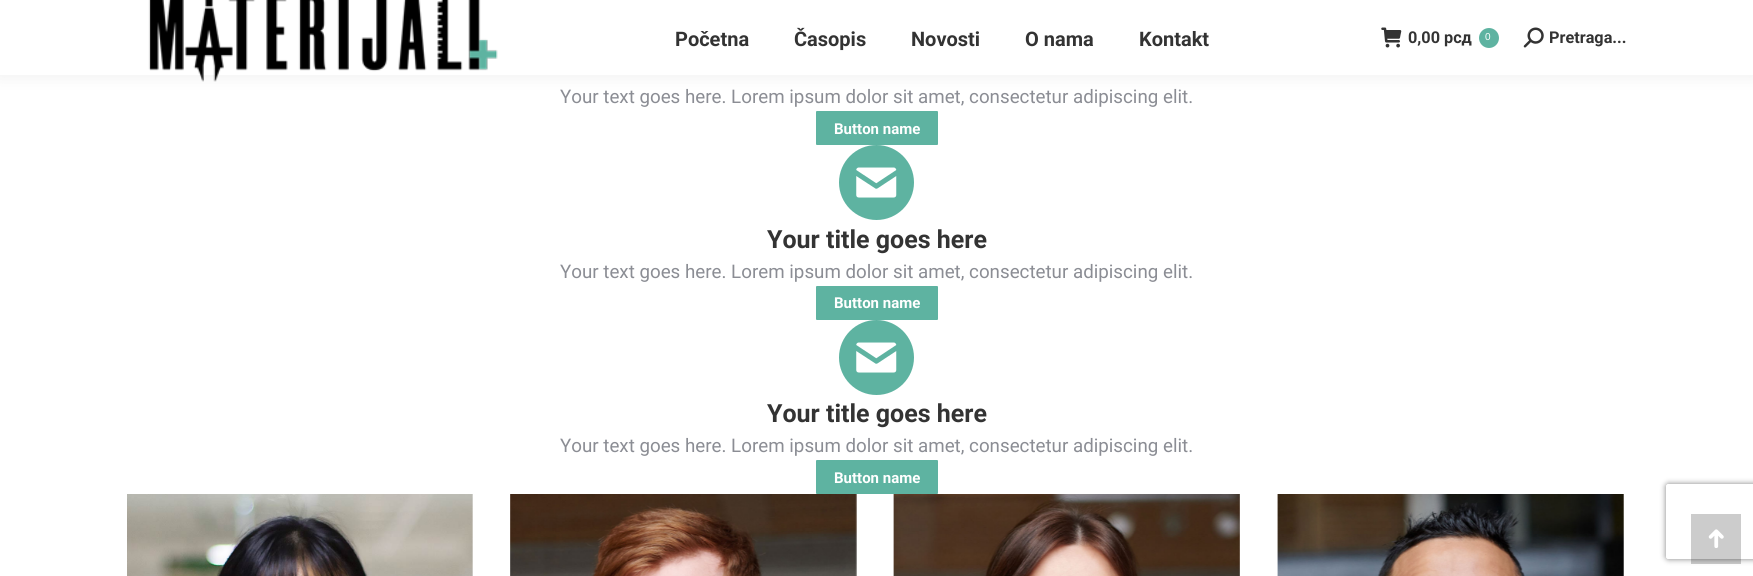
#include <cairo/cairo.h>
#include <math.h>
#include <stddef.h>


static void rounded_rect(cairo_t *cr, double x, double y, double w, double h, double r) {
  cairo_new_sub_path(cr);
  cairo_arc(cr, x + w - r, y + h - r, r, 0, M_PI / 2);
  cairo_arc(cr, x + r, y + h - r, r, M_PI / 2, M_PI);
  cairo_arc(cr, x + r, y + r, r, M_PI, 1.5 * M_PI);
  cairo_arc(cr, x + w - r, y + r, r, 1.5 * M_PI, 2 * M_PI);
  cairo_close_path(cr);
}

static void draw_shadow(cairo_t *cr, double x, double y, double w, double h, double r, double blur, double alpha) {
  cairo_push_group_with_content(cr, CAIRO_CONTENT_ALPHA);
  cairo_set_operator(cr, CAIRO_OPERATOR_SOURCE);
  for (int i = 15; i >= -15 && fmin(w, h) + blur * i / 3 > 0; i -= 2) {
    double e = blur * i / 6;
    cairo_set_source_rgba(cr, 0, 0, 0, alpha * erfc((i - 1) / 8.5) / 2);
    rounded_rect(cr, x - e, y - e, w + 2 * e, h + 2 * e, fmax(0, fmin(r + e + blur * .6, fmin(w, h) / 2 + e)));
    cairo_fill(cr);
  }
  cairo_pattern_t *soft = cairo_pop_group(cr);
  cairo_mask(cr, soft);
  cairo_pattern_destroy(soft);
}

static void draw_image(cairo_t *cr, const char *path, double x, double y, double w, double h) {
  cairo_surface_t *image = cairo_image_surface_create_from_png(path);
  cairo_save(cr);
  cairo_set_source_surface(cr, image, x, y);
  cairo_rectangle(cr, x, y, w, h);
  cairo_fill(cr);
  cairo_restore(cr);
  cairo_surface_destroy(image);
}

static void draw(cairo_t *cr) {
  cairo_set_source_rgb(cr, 1, 1, 1);
  cairo_paint(cr);
  cairo_set_source_rgb(cr, 0, 0, 0);
  draw_shadow(cr, -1, -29, 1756, 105, 0, 9.5, 0.07);
  cairo_set_source_rgb(cr, 1, 1, 1);
  cairo_rectangle(cr, 0, 0, 1753, 75);
  cairo_fill(cr);
  draw_image(cr, "images/1.png", 148, 0, 350, 82);
  draw_image(cr, "images/2.png", 1381, 27, 21, 21);
  cairo_set_source_rgb(cr, 94 / 255.0, 179 / 255.0, 161 / 255.0);
  cairo_arc(cr, 1489, 38, 10, 0, 2 * M_PI);
  cairo_fill(cr);
  draw_image(cr, "images/3.png", 1523, 27, 21, 21);
  rounded_rect(cr, 816, 111, 122, 34, 1);
  cairo_fill(cr);
  cairo_arc(cr, 876.5, 182.5, 37.5, 0, 2 * M_PI);
  cairo_fill(cr);
  draw_image(cr, "images/4.png", 856, 167, 41, 31);
  rounded_rect(cr, 816, 286, 122, 34, 1);
  cairo_fill(cr);
  cairo_arc(cr, 876.5, 357.5, 37.5, 0, 2 * M_PI);
  cairo_fill(cr);
  draw_image(cr, "images/4.png", 856, 342, 41, 31);
  rounded_rect(cr, 816, 460, 122, 34, 1);
  cairo_fill(cr);
  cairo_set_source_rgb(cr, 245 / 255.0, 245 / 255.0, 245 / 255.0);
  cairo_rectangle(cr, 472, 494, 1, 82);
  cairo_fill(cr);
  draw_image(cr, "images/5.png", 127, 494, 346, 82);
  draw_image(cr, "images/6.png", 510, 494, 347, 82);
  draw_image(cr, "images/7.png", 893, 494, 347, 82);
  draw_image(cr, "images/8.png", 1277, 494, 347, 82);
  cairo_save(cr);
  cairo_set_fill_rule(cr, CAIRO_FILL_RULE_EVEN_ODD);
  cairo_new_path(cr);
  cairo_move_to(cr, 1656, 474);
  cairo_line_to(cr, 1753, 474);
  cairo_line_to(cr, 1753, 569);
  cairo_line_to(cr, 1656, 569);
  cairo_close_path(cr);
  cairo_move_to(cr, 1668.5, 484);
  cairo_line_to(cr, 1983.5, 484);
  cairo_curve_to(cr, 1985, 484, 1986, 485, 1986, 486.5);
  cairo_line_to(cr, 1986, 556.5);
  cairo_curve_to(cr, 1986, 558, 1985, 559, 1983.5, 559);
  cairo_line_to(cr, 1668.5, 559);
  cairo_curve_to(cr, 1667, 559, 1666, 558, 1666, 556.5);
  cairo_line_to(cr, 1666, 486.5);
  cairo_curve_to(cr, 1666, 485, 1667, 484, 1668.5, 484);
  cairo_close_path(cr);
  cairo_clip(cr);
  cairo_set_source_rgb(cr, 128 / 255.0, 128 / 255.0, 128 / 255.0);
  draw_shadow(cr, 1666, 484, 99, 75, 2.5, 3, 1);
  cairo_restore(cr);
  cairo_set_source_rgba(cr, 0, 0, 0, 0.2);
  cairo_rectangle(cr, 1691, 514, 50, 50);
  cairo_fill(cr);
  draw_image(cr, "images/9.png", 1708, 529, 16, 19);
  cairo_select_font_face(cr, "Roboto", CAIRO_FONT_SLANT_NORMAL, CAIRO_FONT_WEIGHT_BOLD);
  cairo_set_font_size(cr, 20);
  cairo_set_source_rgb(cr, 51 / 255.0, 51 / 255.0, 51 / 255.0);
  cairo_move_to(cr, 675, 46);
  cairo_show_text(cr, "Početna");
  cairo_move_to(cr, 794, 46);
  cairo_show_text(cr, "Časopis");
  cairo_move_to(cr, 911, 46);
  cairo_show_text(cr, "Novosti");
  cairo_move_to(cr, 1025, 46);
  cairo_show_text(cr, "O nama");
  cairo_move_to(cr, 1139, 46);
  cairo_show_text(cr, "Kontakt");
  cairo_set_font_size(cr, 16.25);
  cairo_move_to(cr, 1408, 43);
  cairo_show_text(cr, "0,00 рсд");
  cairo_select_font_face(cr, "Liberation Sans", CAIRO_FONT_SLANT_NORMAL, CAIRO_FONT_WEIGHT_NORMAL);
  cairo_set_font_size(cr, 10);
  cairo_set_source_rgb(cr, 1, 1, 1);
  cairo_move_to(cr, 1485, 40);
  cairo_show_text(cr, "0");
  cairo_select_font_face(cr, "Roboto", CAIRO_FONT_SLANT_NORMAL, CAIRO_FONT_WEIGHT_BOLD);
  cairo_set_font_size(cr, 16.25);
  cairo_set_source_rgb(cr, 51 / 255.0, 51 / 255.0, 51 / 255.0);
  cairo_move_to(cr, 1549, 43);
  cairo_show_text(cr, "Pretraga...");
  cairo_select_font_face(cr, "Roboto", CAIRO_FONT_SLANT_NORMAL, CAIRO_FONT_WEIGHT_NORMAL);
  cairo_set_font_size(cr, 18.75);
  cairo_set_source_rgb(cr, 139 / 255.0, 141 / 255.0, 148 / 255.0);
  cairo_move_to(cr, 560, 103);
  cairo_show_text(cr, "Your text goes here. Lorem ipsum dolor sit amet, consectetur adipiscing elit.");
  cairo_select_font_face(cr, "Roboto", CAIRO_FONT_SLANT_NORMAL, CAIRO_FONT_WEIGHT_BOLD);
  cairo_set_font_size(cr, 15);
  cairo_set_source_rgb(cr, 1, 1, 1);
  cairo_move_to(cr, 834, 134);
  cairo_show_text(cr, "Button name");
  cairo_set_font_size(cr, 25);
  cairo_set_source_rgb(cr, 51 / 255.0, 51 / 255.0, 51 / 255.0);
  cairo_move_to(cr, 767, 248);
  cairo_show_text(cr, "Your title goes here");
  cairo_select_font_face(cr, "Roboto", CAIRO_FONT_SLANT_NORMAL, CAIRO_FONT_WEIGHT_NORMAL);
  cairo_set_font_size(cr, 18.75);
  cairo_set_source_rgb(cr, 139 / 255.0, 141 / 255.0, 148 / 255.0);
  cairo_move_to(cr, 560, 278);
  cairo_show_text(cr, "Your text goes here. Lorem ipsum dolor sit amet, consectetur adipiscing elit.");
  cairo_select_font_face(cr, "Roboto", CAIRO_FONT_SLANT_NORMAL, CAIRO_FONT_WEIGHT_BOLD);
  cairo_set_font_size(cr, 15);
  cairo_set_source_rgb(cr, 1, 1, 1);
  cairo_move_to(cr, 834, 308);
  cairo_show_text(cr, "Button name");
  cairo_set_font_size(cr, 25);
  cairo_set_source_rgb(cr, 51 / 255.0, 51 / 255.0, 51 / 255.0);
  cairo_move_to(cr, 767, 422);
  cairo_show_text(cr, "Your title goes here");
  cairo_select_font_face(cr, "Roboto", CAIRO_FONT_SLANT_NORMAL, CAIRO_FONT_WEIGHT_NORMAL);
  cairo_set_font_size(cr, 18.75);
  cairo_set_source_rgb(cr, 139 / 255.0, 141 / 255.0, 148 / 255.0);
  cairo_move_to(cr, 560, 452);
  cairo_show_text(cr, "Your text goes here. Lorem ipsum dolor sit amet, consectetur adipiscing elit.");
  cairo_select_font_face(cr, "Roboto", CAIRO_FONT_SLANT_NORMAL, CAIRO_FONT_WEIGHT_BOLD);
  cairo_set_font_size(cr, 15);
  cairo_set_source_rgb(cr, 1, 1, 1);
  cairo_move_to(cr, 834, 483);
  cairo_show_text(cr, "Button name");
}

int main(void) {
  cairo_surface_t *surface = cairo_image_surface_create(CAIRO_FORMAT_RGB24, 1753, 576);
  cairo_t *cr = cairo_create(surface);
  cairo_font_options_t *options = cairo_font_options_create();
  cairo_font_options_set_hint_metrics(options, CAIRO_HINT_METRICS_OFF);
  cairo_font_options_set_hint_style(options, CAIRO_HINT_STYLE_NONE);
  cairo_set_font_options(cr, options);
  cairo_set_miter_limit(cr, 4);
  draw(cr);
  cairo_surface_write_to_png(surface, "out.png");
  cairo_font_options_destroy(options);
  cairo_destroy(cr);
  cairo_surface_destroy(surface);
  return 0;
}
